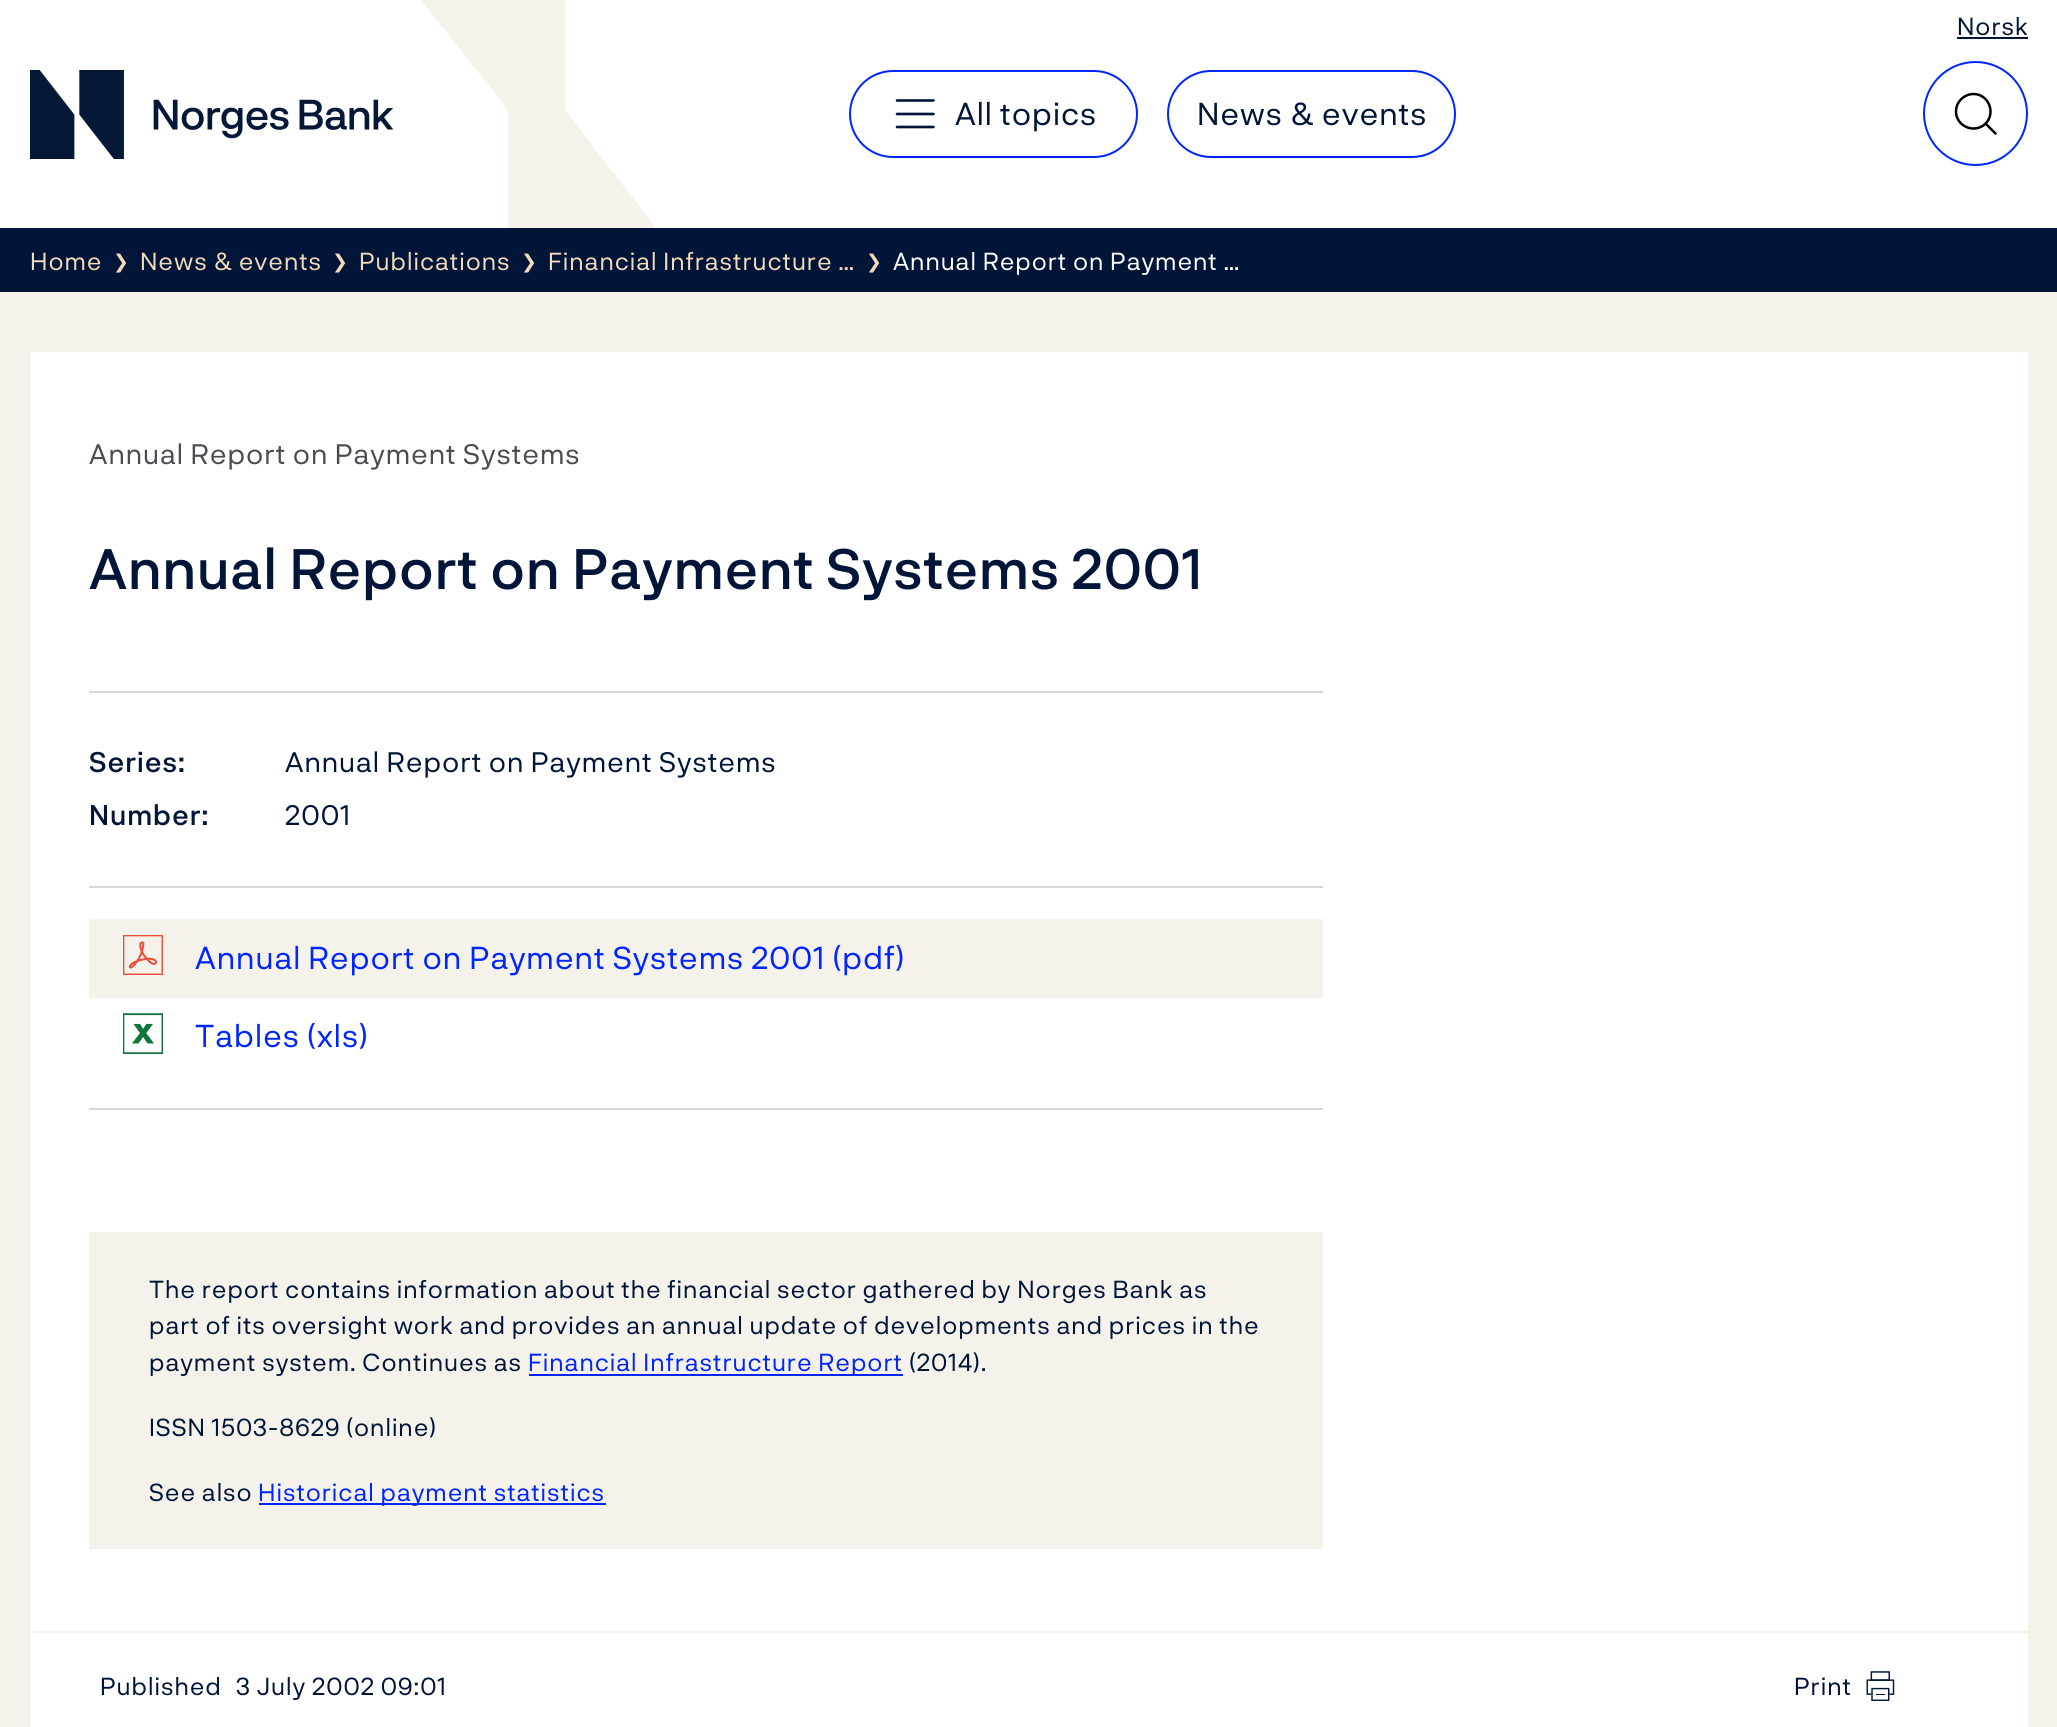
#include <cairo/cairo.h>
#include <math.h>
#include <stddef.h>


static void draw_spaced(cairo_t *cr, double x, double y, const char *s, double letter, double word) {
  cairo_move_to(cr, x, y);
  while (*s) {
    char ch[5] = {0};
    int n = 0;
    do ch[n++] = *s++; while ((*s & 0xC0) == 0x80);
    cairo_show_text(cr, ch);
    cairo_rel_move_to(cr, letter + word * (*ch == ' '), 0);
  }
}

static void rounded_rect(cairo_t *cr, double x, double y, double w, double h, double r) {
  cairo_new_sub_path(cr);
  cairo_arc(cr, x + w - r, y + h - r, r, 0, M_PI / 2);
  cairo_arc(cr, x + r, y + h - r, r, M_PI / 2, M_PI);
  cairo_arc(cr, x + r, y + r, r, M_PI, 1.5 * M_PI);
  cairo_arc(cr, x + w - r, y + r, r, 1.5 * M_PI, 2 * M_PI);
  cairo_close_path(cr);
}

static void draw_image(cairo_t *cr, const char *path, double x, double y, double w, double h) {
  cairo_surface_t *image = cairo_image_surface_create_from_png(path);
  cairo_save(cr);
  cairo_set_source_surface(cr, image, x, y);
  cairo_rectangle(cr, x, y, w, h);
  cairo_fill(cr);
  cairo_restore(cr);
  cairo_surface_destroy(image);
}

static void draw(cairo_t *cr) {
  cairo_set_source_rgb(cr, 245 / 255.0, 242 / 255.0, 235 / 255.0);
  cairo_paint(cr);
  cairo_set_source_rgb(cr, 1, 1, 1);
  cairo_rectangle(cr, 0, 0, 2057, 228);
  cairo_fill(cr);
  draw_image(cr, "images/1.png", 30, 70, 364, 89);
  cairo_set_source_rgb(cr, 245 / 255.0, 242 / 255.0, 235 / 255.0);
  cairo_new_path(cr);
  cairo_move_to(cr, 421, 0);
  cairo_line_to(cr, 508, 110);
  cairo_line_to(cr, 508, 228);
  cairo_line_to(cr, 656, 228);
  cairo_line_to(cr, 565, 110);
  cairo_line_to(cr, 565, 0);
  cairo_close_path(cr);
  cairo_fill(cr);
  cairo_set_source_rgb(cr, 0, 21 / 255.0, 56 / 255.0);
  cairo_rectangle(cr, 1957, 37, 71, 2);
  cairo_fill(cr);
  rounded_rect(cr, 850, 71, 287, 86, 43);
  cairo_set_source_rgb(cr, 0, 38 / 255.0, 1);
  cairo_stroke(cr);
  cairo_new_path(cr);
  cairo_move_to(cr, 897, 114);
  cairo_line_to(cr, 933.5, 114);
  cairo_move_to(cr, 897, 100.5);
  cairo_line_to(cr, 933.5, 100.5);
  cairo_move_to(cr, 897, 127);
  cairo_line_to(cr, 933.5, 127);
  cairo_set_source_rgb(cr, 0, 21 / 255.0, 56 / 255.0);
  cairo_set_line_width(cr, 2.6);
  cairo_set_line_cap(cr, CAIRO_LINE_CAP_ROUND);
  cairo_set_line_join(cr, CAIRO_LINE_JOIN_ROUND);
  cairo_stroke(cr);
  rounded_rect(cr, 1168, 71, 287, 86, 43);
  cairo_set_source_rgb(cr, 0, 38 / 255.0, 1);
  cairo_set_line_width(cr, 2);
  cairo_set_line_cap(cr, CAIRO_LINE_CAP_BUTT);
  cairo_set_line_join(cr, CAIRO_LINE_JOIN_MITER);
  cairo_stroke(cr);
  cairo_arc(cr, 1975.5, 113.5, 51.5, 0, 2 * M_PI);
  cairo_stroke(cr);
  cairo_new_path(cr);
  cairo_move_to(cr, 1973.5, 128.5);
  cairo_curve_to(cr, 1983, 128.5, 1990.5, 121, 1990.5, 111.5);
  cairo_curve_to(cr, 1990.5, 102, 1983, 94, 1973.5, 94);
  cairo_curve_to(cr, 1964, 94, 1956, 102, 1956, 111.5);
  cairo_curve_to(cr, 1956, 121, 1964, 128.5, 1973.5, 128.5);
  cairo_close_path(cr);
  cairo_move_to(cr, 1985.5, 123.5);
  cairo_line_to(cr, 1995.5, 133.5);
  cairo_set_source_rgb(cr, 0, 0, 0);
  cairo_set_line_width(cr, 2.5);
  cairo_set_line_cap(cr, CAIRO_LINE_CAP_ROUND);
  cairo_set_line_join(cr, CAIRO_LINE_JOIN_ROUND);
  cairo_stroke(cr);
  cairo_set_source_rgb(cr, 0, 21 / 255.0, 56 / 255.0);
  cairo_rectangle(cr, 0, 228, 2057, 64);
  cairo_fill(cr);
  cairo_set_source_rgb(cr, 1, 1, 1);
  cairo_rectangle(cr, 30, 352, 1998, 1279);
  cairo_fill(cr);
  cairo_set_source_rgb(cr, 215 / 255.0, 215 / 255.0, 215 / 255.0);
  cairo_rectangle(cr, 89, 691, 1234, 2);
  cairo_fill(cr);
  cairo_rectangle(cr, 89, 886, 1234, 2);
  cairo_fill(cr);
  cairo_rectangle(cr, 89, 1108, 1234, 2);
  cairo_fill(cr);
  cairo_set_source_rgb(cr, 245 / 255.0, 242 / 255.0, 235 / 255.0);
  cairo_rectangle(cr, 89, 919, 1234, 79);
  cairo_fill(cr);
  draw_image(cr, "images/2.png", 123, 935, 40, 40);
  draw_image(cr, "images/3.png", 123, 1013, 40, 41);
  cairo_rectangle(cr, 89, 1232, 1234, 317);
  cairo_fill(cr);
  cairo_set_source_rgb(cr, 0, 38 / 255.0, 1);
  cairo_rectangle(cr, 529, 1374, 374, 2);
  cairo_fill(cr);
  cairo_rectangle(cr, 259, 1503, 347, 2);
  cairo_fill(cr);
  cairo_set_source_rgb(cr, 1, 1, 1);
  cairo_rectangle(cr, 30, 1633, 1998, 94);
  cairo_fill(cr);
  draw_image(cr, "images/4.png", 1866, 1671, 29, 30);
  cairo_select_font_face(cr, "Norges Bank", CAIRO_FONT_SLANT_NORMAL, CAIRO_FONT_WEIGHT_NORMAL);
  cairo_set_font_size(cr, 24.5);
  cairo_set_source_rgb(cr, 0, 21 / 255.0, 56 / 255.0);
  draw_spaced(cr, 1957, 35, "Norsk", 0.98, 0);
  cairo_set_font_size(cr, 31.5);
  draw_spaced(cr, 955, 125, "All topics", 0.98, 0);
  draw_spaced(cr, 1197, 125, "News & events", 0.98, 0);
  cairo_set_font_size(cr, 24.5);
  cairo_set_source_rgb(cr, 242 / 255.0, 218 / 255.0, 187 / 255.0);
  draw_spaced(cr, 30, 270, "Home", 0.98, 0);
  cairo_select_font_face(cr, "DejaVu Sans", CAIRO_FONT_SLANT_NORMAL, CAIRO_FONT_WEIGHT_NORMAL);
  cairo_set_font_size(cr, 19);
  draw_spaced(cr, 113, 268, "❯", 0.98, 0);
  cairo_select_font_face(cr, "Norges Bank", CAIRO_FONT_SLANT_NORMAL, CAIRO_FONT_WEIGHT_NORMAL);
  cairo_set_font_size(cr, 24.5);
  draw_spaced(cr, 140, 270, "News & events", 0.98, 0);
  cairo_select_font_face(cr, "DejaVu Sans", CAIRO_FONT_SLANT_NORMAL, CAIRO_FONT_WEIGHT_NORMAL);
  cairo_set_font_size(cr, 19);
  draw_spaced(cr, 332, 268, "❯", 0.98, 0);
  cairo_select_font_face(cr, "Norges Bank", CAIRO_FONT_SLANT_NORMAL, CAIRO_FONT_WEIGHT_NORMAL);
  cairo_set_font_size(cr, 24.5);
  draw_spaced(cr, 359, 270, "Publications", 0.98, 0);
  cairo_select_font_face(cr, "DejaVu Sans", CAIRO_FONT_SLANT_NORMAL, CAIRO_FONT_WEIGHT_NORMAL);
  cairo_set_font_size(cr, 19);
  draw_spaced(cr, 521, 268, "❯", 0.98, 0);
  cairo_select_font_face(cr, "Norges Bank", CAIRO_FONT_SLANT_NORMAL, CAIRO_FONT_WEIGHT_NORMAL);
  cairo_set_font_size(cr, 24.5);
  draw_spaced(cr, 548, 270, "Financial Infrastructure …", 0.98, 0);
  cairo_select_font_face(cr, "DejaVu Sans", CAIRO_FONT_SLANT_NORMAL, CAIRO_FONT_WEIGHT_NORMAL);
  cairo_set_font_size(cr, 19);
  draw_spaced(cr, 866, 268, "❯", 0.98, 0);
  cairo_select_font_face(cr, "Norges Bank", CAIRO_FONT_SLANT_NORMAL, CAIRO_FONT_WEIGHT_NORMAL);
  cairo_set_font_size(cr, 24.5);
  cairo_set_source_rgb(cr, 1, 1, 1);
  draw_spaced(cr, 893, 270, "Annual Report on Payment …", 0.98, 0);
  cairo_set_font_size(cr, 28);
  cairo_set_source_rgb(cr, 73 / 255.0, 76 / 255.0, 80 / 255.0);
  draw_spaced(cr, 89, 464, "Annual Report on Payment Systems", 0.98, 0);
  cairo_select_font_face(cr, "Norges Bank Medium", CAIRO_FONT_SLANT_NORMAL, CAIRO_FONT_WEIGHT_NORMAL);
  cairo_set_font_size(cr, 56);
  cairo_set_source_rgb(cr, 0, 21 / 255.0, 56 / 255.0);
  draw_spaced(cr, 89, 589, "Annual Report on Payment Systems 2001", 0.98, 0);
  cairo_set_font_size(cr, 28);
  draw_spaced(cr, 89, 772, "Series:", 0.98, 0);
  cairo_select_font_face(cr, "Norges Bank", CAIRO_FONT_SLANT_NORMAL, CAIRO_FONT_WEIGHT_NORMAL);
  draw_spaced(cr, 285, 772, "Annual Report on Payment Systems", 0.98, 0);
  cairo_select_font_face(cr, "Norges Bank Medium", CAIRO_FONT_SLANT_NORMAL, CAIRO_FONT_WEIGHT_NORMAL);
  draw_spaced(cr, 89, 825, "Number:", 0.98, 0);
  cairo_select_font_face(cr, "Norges Bank", CAIRO_FONT_SLANT_NORMAL, CAIRO_FONT_WEIGHT_NORMAL);
  draw_spaced(cr, 285, 825, "2001", 0.98, 0);
  cairo_set_font_size(cr, 31.5);
  cairo_set_source_rgb(cr, 0, 38 / 255.0, 1);
  draw_spaced(cr, 195, 969, "Annual Report on Payment Systems 2001 (pdf)", 0.98, 0);
  draw_spaced(cr, 195, 1047, "Tables (xls)", 0.98, 0);
  cairo_set_font_size(cr, 24.5);
  cairo_set_source_rgb(cr, 0, 21 / 255.0, 56 / 255.0);
  draw_spaced(cr, 149, 1298, "The report contains information about the financial sector gathered by Norges Bank as", 0.98, 0);
  draw_spaced(cr, 149, 1334, "part of its oversight work and provides an annual update of developments and prices in the", 0.98, 0);
  draw_spaced(cr, 149, 1371, "payment system. Continues as", 0.98, 0);
  cairo_set_source_rgb(cr, 0, 38 / 255.0, 1);
  draw_spaced(cr, 528, 1371, "Financial Infrastructure Report", 0.98, 0);
  cairo_set_source_rgb(cr, 0, 21 / 255.0, 56 / 255.0);
  draw_spaced(cr, 909, 1371, "(2014).", 0.98, 0);
  draw_spaced(cr, 149, 1436, "ISSN 1503-8629 (online)", 0.98, 0);
  draw_spaced(cr, 149, 1501, "See also", 0.98, 0);
  cairo_set_source_rgb(cr, 0, 38 / 255.0, 1);
  draw_spaced(cr, 258, 1501, "Historical payment statistics", 0.98, 0);
  cairo_set_source_rgb(cr, 0, 21 / 255.0, 56 / 255.0);
  draw_spaced(cr, 100, 1695, "Published", 0.98, 0);
  draw_spaced(cr, 236, 1695, "3 July 2002 09:01", 0.98, 0);
  draw_spaced(cr, 1794, 1695, "Print", 0.98, 0);
}

int main(void) {
  cairo_surface_t *surface = cairo_image_surface_create(CAIRO_FORMAT_RGB24, 2057, 1727);
  cairo_t *cr = cairo_create(surface);
  cairo_font_options_t *options = cairo_font_options_create();
  cairo_font_options_set_hint_metrics(options, CAIRO_HINT_METRICS_OFF);
  cairo_font_options_set_hint_style(options, CAIRO_HINT_STYLE_NONE);
  cairo_set_font_options(cr, options);
  cairo_set_miter_limit(cr, 4);
  draw(cr);
  cairo_surface_write_to_png(surface, "out.png");
  cairo_font_options_destroy(options);
  cairo_destroy(cr);
  cairo_surface_destroy(surface);
  return 0;
}
